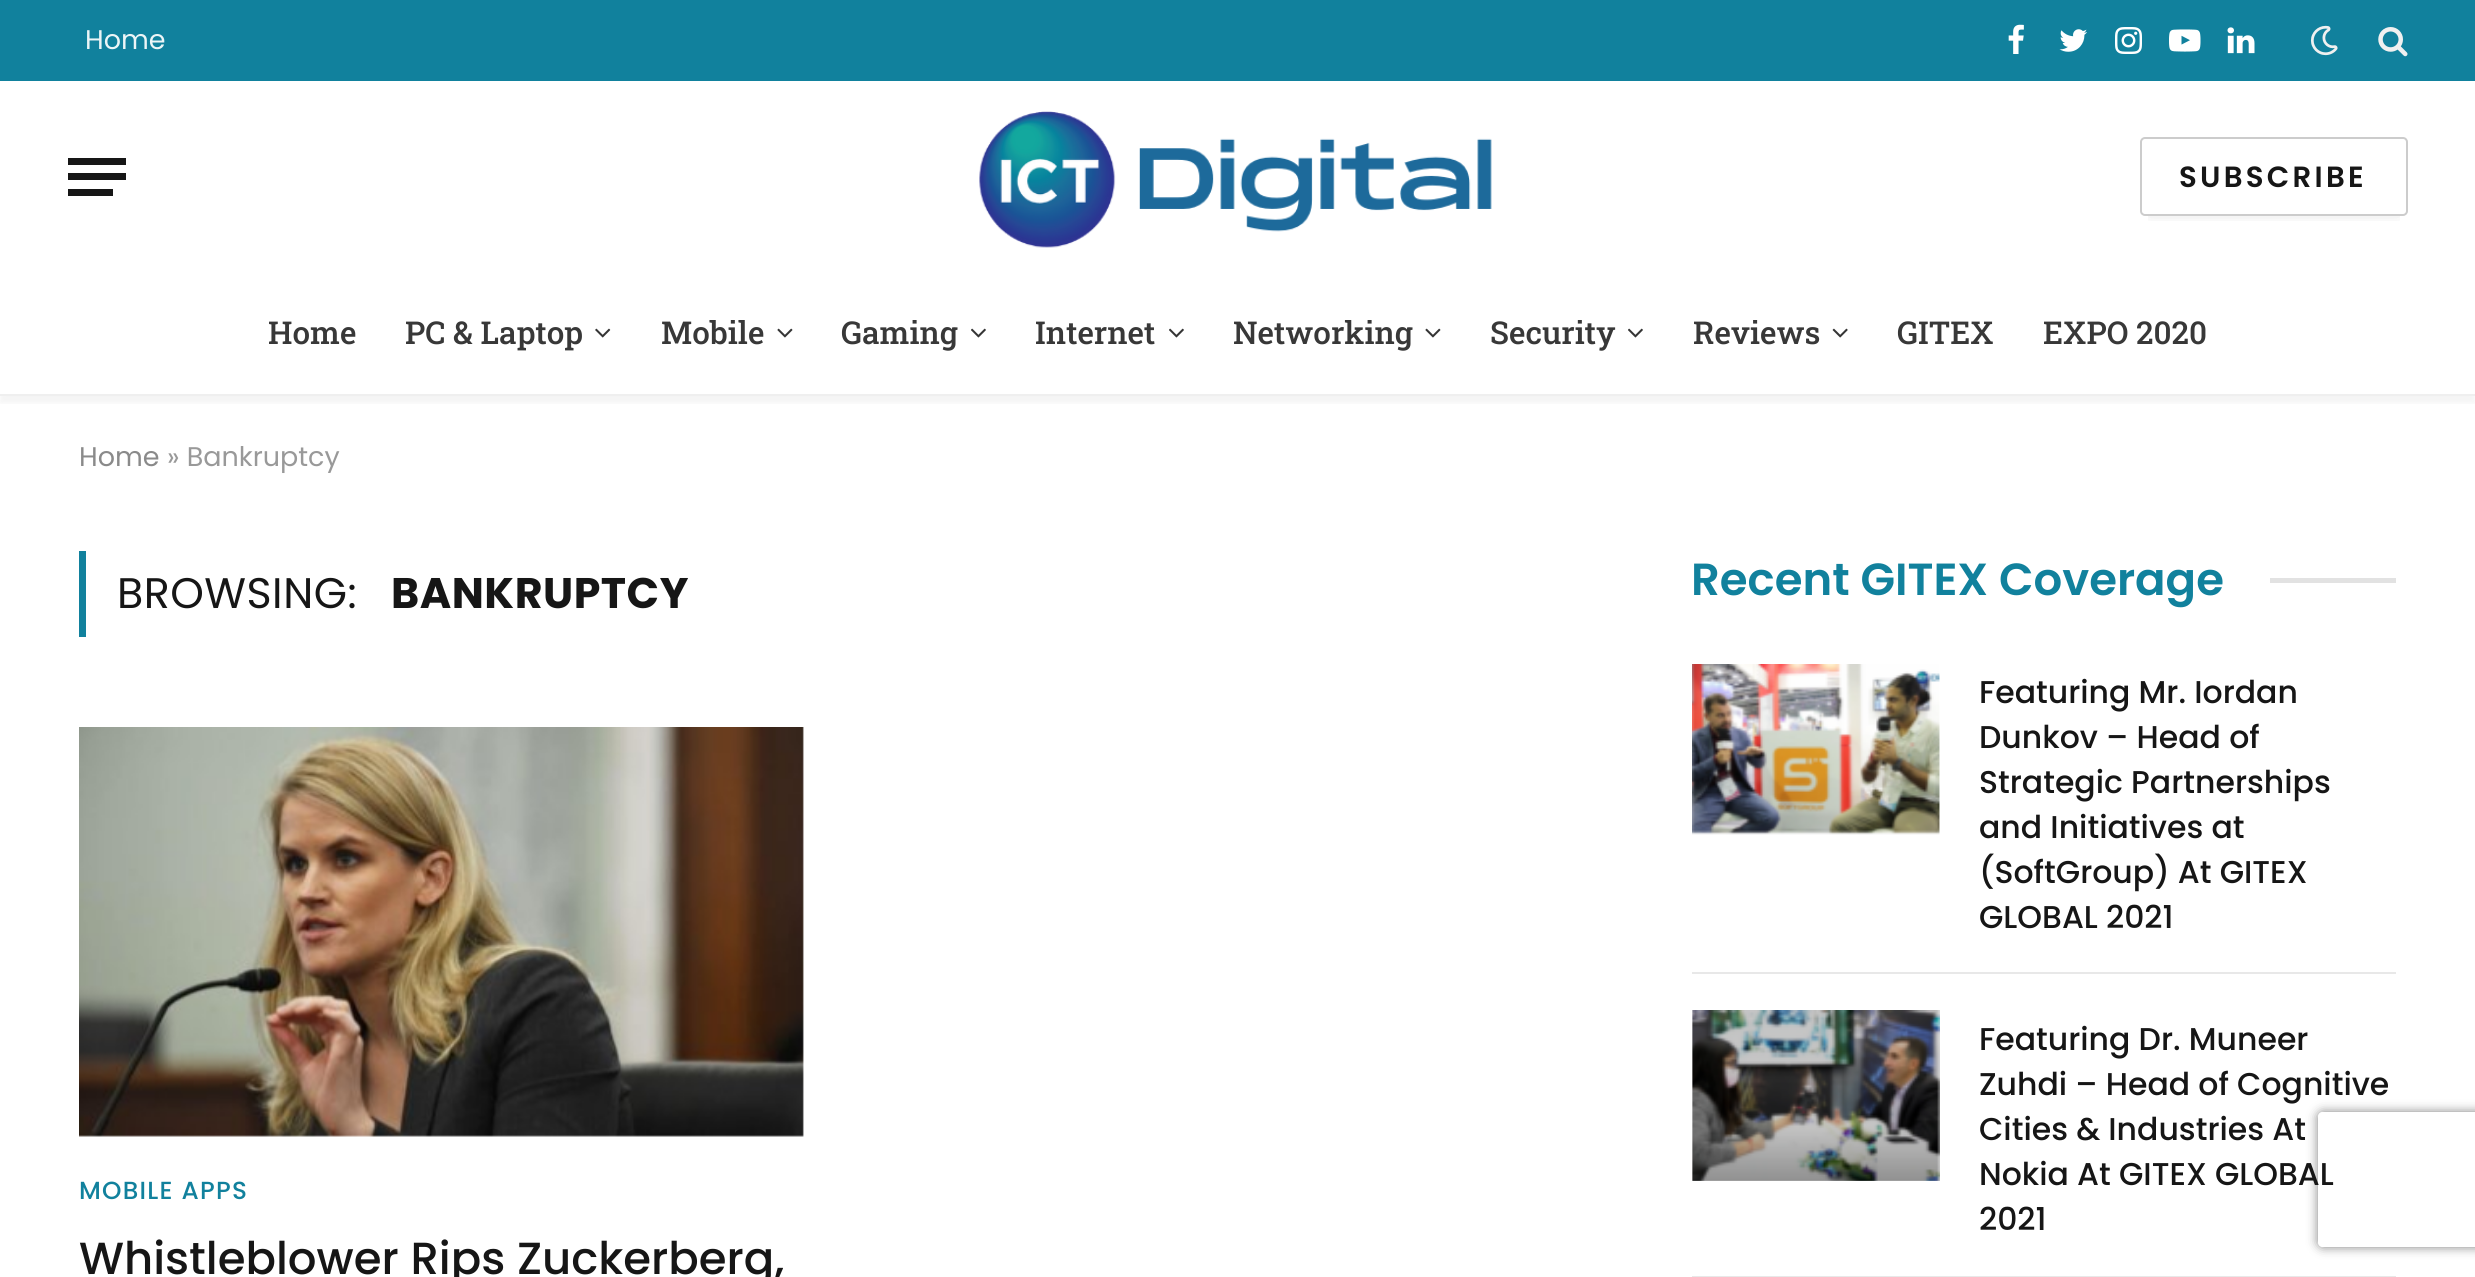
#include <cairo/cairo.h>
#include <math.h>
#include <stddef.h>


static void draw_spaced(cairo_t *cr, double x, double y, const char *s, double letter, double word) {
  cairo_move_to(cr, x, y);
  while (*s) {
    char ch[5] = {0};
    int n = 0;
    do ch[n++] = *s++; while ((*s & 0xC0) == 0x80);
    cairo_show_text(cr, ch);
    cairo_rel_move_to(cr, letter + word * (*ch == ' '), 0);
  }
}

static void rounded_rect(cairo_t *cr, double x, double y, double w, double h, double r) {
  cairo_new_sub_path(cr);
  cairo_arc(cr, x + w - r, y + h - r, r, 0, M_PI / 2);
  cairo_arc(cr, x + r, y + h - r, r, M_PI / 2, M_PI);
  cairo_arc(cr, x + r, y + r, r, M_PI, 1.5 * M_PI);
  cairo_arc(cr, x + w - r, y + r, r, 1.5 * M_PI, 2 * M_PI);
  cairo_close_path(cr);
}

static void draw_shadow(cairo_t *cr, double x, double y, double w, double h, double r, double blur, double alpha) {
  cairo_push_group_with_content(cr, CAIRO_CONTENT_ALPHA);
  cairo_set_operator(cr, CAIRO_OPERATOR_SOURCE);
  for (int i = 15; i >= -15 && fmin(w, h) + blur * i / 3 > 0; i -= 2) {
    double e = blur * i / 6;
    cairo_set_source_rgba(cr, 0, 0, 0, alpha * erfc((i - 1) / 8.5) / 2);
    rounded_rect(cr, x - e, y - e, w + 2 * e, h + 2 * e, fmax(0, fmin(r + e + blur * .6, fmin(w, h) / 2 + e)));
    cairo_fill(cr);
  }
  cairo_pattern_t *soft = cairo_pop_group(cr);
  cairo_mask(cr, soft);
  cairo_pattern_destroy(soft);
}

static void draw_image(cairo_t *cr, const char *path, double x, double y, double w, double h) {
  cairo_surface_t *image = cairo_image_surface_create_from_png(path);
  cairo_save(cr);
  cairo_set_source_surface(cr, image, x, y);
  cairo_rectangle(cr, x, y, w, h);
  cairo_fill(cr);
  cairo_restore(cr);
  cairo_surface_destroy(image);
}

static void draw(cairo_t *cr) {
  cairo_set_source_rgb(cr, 1, 1, 1);
  cairo_paint(cr);
  cairo_save(cr);
  cairo_rectangle(cr, 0, 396, 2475, 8);
  cairo_clip(cr);
  cairo_set_source_rgb(cr, 0, 0, 0);
  draw_shadow(cr, 0, 7, 2475, 396, 0, 4.5, 0.05);
  cairo_restore(cr);
  cairo_set_source_rgb(cr, 17 / 255.0, 129 / 255.0, 157 / 255.0);
  cairo_rectangle(cr, 0, 0, 2475, 81);
  cairo_fill(cr);
  draw_image(cr, "images/1.png", 2008, 24, 16, 30);
  draw_image(cr, "images/2.png", 2059, 29, 28, 23);
  draw_image(cr, "images/3.png", 2115, 27, 27, 27);
  draw_image(cr, "images/4.png", 2169, 29, 32, 23);
  draw_image(cr, "images/5.png", 2227, 27, 28, 27);
  draw_image(cr, "images/6.png", 2310, 25, 28, 31);
  draw_image(cr, "images/7.png", 2378, 27, 30, 30);
  cairo_set_source_rgb(cr, 22 / 255.0, 22 / 255.0, 22 / 255.0);
  cairo_rectangle(cr, 68, 189, 45, 7);
  cairo_fill(cr);
  cairo_rectangle(cr, 68, 158, 58, 7);
  cairo_fill(cr);
  cairo_rectangle(cr, 68, 173, 58, 7);
  cairo_fill(cr);
  draw_image(cr, "images/8.png", 979, 111, 513, 137);
  cairo_save(cr);
  cairo_rectangle(cr, 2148, 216, 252, 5);
  cairo_clip(cr);
  cairo_set_source_rgb(cr, 0, 0, 0);
  draw_shadow(cr, 2149, 151, 250, 61, 0, 8, 0.16);
  cairo_restore(cr);
  rounded_rect(cr, 2141, 138, 266, 77, 4);
  cairo_set_source_rgba(cr, 0, 0, 0, 0.2);
  cairo_stroke(cr);
  cairo_set_source_rgb(cr, 239 / 255.0, 239 / 255.0, 239 / 255.0);
  cairo_rectangle(cr, 0, 394, 2475, 2);
  cairo_fill(cr);
  draw_image(cr, "images/9.png", 595, 328, 16, 10);
  draw_image(cr, "images/10.png", 777, 328, 16, 10);
  draw_image(cr, "images/11.png", 971, 328, 15, 10);
  draw_image(cr, "images/11.png", 1169, 328, 15, 10);
  draw_image(cr, "images/10.png", 1425, 328, 16, 10);
  draw_image(cr, "images/11.png", 1628, 328, 15, 10);
  draw_image(cr, "images/12.png", 1832, 328, 16, 10);
  cairo_set_source_rgb(cr, 17 / 255.0, 129 / 255.0, 157 / 255.0);
  cairo_rectangle(cr, 79, 551, 7, 86);
  cairo_fill(cr);
  draw_image(cr, "images/13.png", 79, 727, 725, 410);
  cairo_set_source_rgb(cr, 226 / 255.0, 226 / 255.0, 226 / 255.0);
  cairo_rectangle(cr, 2270, 578, 126, 5);
  cairo_fill(cr);
  draw_image(cr, "images/14.png", 1692, 664, 248, 171);
  cairo_set_source_rgb(cr, 232 / 255.0, 232 / 255.0, 232 / 255.0);
  cairo_rectangle(cr, 1692, 972, 704, 2);
  cairo_fill(cr);
  draw_image(cr, "images/15.png", 1692, 1010, 248, 171);
  cairo_rectangle(cr, 1692, 1276, 704, 1);
  cairo_fill(cr);
  cairo_save(cr);
  cairo_set_fill_rule(cr, CAIRO_FILL_RULE_EVEN_ODD);
  cairo_new_path(cr);
  cairo_move_to(cr, 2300, 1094);
  cairo_line_to(cr, 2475, 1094);
  cairo_line_to(cr, 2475, 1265);
  cairo_line_to(cr, 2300, 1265);
  cairo_close_path(cr);
  cairo_move_to(cr, 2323, 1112);
  cairo_line_to(cr, 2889, 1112);
  cairo_curve_to(cr, 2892, 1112, 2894, 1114, 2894, 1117);
  cairo_line_to(cr, 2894, 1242);
  cairo_curve_to(cr, 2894, 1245, 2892, 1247, 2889, 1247);
  cairo_line_to(cr, 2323, 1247);
  cairo_curve_to(cr, 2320, 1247, 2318, 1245, 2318, 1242);
  cairo_line_to(cr, 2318, 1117);
  cairo_curve_to(cr, 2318, 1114, 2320, 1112, 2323, 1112);
  cairo_close_path(cr);
  cairo_clip(cr);
  cairo_set_source_rgb(cr, 128 / 255.0, 128 / 255.0, 128 / 255.0);
  draw_shadow(cr, 2318, 1112, 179, 135, 5, 5.5, 1);
  cairo_restore(cr);
  cairo_select_font_face(cr, "Poppins", CAIRO_FONT_SLANT_NORMAL, CAIRO_FONT_WEIGHT_NORMAL);
  cairo_set_font_size(cr, 27);
  cairo_set_source_rgb(cr, 236 / 255.0, 245 / 255.0, 247 / 255.0);
  cairo_move_to(cr, 85, 49);
  cairo_show_text(cr, "Home");
  cairo_select_font_face(cr, "Poppins SemiBold", CAIRO_FONT_SLANT_NORMAL, CAIRO_FONT_WEIGHT_NORMAL);
  cairo_set_font_size(cr, 29.25);
  cairo_set_source_rgb(cr, 22 / 255.0, 22 / 255.0, 22 / 255.0);
  draw_spaced(cr, 2179, 187, "SUBSCRIBE", 3.25, 0);
  cairo_select_font_face(cr, "Roboto Slab Medium", CAIRO_FONT_SLANT_NORMAL, CAIRO_FONT_WEIGHT_NORMAL);
  cairo_set_font_size(cr, 31.5);
  cairo_set_source_rgb(cr, 56 / 255.0, 56 / 255.0, 56 / 255.0);
  cairo_move_to(cr, 268, 344);
  cairo_show_text(cr, "Home");
  cairo_move_to(cr, 405, 344);
  cairo_show_text(cr, "PC & Laptop");
  cairo_move_to(cr, 661, 344);
  cairo_show_text(cr, "Mobile");
  cairo_move_to(cr, 841, 344);
  cairo_show_text(cr, "Gaming");
  cairo_move_to(cr, 1035, 344);
  cairo_show_text(cr, "Internet");
  cairo_move_to(cr, 1233, 344);
  cairo_show_text(cr, "Networking");
  cairo_move_to(cr, 1490, 344);
  cairo_show_text(cr, "Security");
  cairo_move_to(cr, 1693, 344);
  cairo_show_text(cr, "Reviews");
  cairo_move_to(cr, 1897, 344);
  cairo_show_text(cr, "GITEX");
  cairo_move_to(cr, 2043, 344);
  cairo_show_text(cr, "EXPO 2020");
  cairo_select_font_face(cr, "Poppins", CAIRO_FONT_SLANT_NORMAL, CAIRO_FONT_WEIGHT_NORMAL);
  cairo_set_font_size(cr, 27);
  cairo_set_source_rgb(cr, 138 / 255.0, 138 / 255.0, 138 / 255.0);
  cairo_move_to(cr, 79, 466);
  cairo_show_text(cr, "Home");
  cairo_set_source_rgb(cr, 153 / 255.0, 153 / 255.0, 153 / 255.0);
  cairo_move_to(cr, 167, 466);
  cairo_show_text(cr, "» Bankruptcy");
  cairo_set_font_size(cr, 42.75);
  cairo_set_source_rgb(cr, 22 / 255.0, 22 / 255.0, 22 / 255.0);
  draw_spaced(cr, 117, 608, "BROWSING:", 0.5, 0);
  cairo_select_font_face(cr, "Poppins", CAIRO_FONT_SLANT_NORMAL, CAIRO_FONT_WEIGHT_BOLD);
  draw_spaced(cr, 391, 608, "BANKRUPTCY", 0.5, 0);
  cairo_select_font_face(cr, "Poppins Medium", CAIRO_FONT_SLANT_NORMAL, CAIRO_FONT_WEIGHT_NORMAL);
  cairo_set_font_size(cr, 24.75);
  cairo_set_source_rgb(cr, 17 / 255.0, 129 / 255.0, 157 / 255.0);
  draw_spaced(cr, 79, 1199, "MOBILE APPS", 1.25, 0);
  cairo_set_font_size(cr, 45);
  cairo_set_source_rgb(cr, 22 / 255.0, 22 / 255.0, 22 / 255.0);
  cairo_move_to(cr, 79, 1274);
  cairo_show_text(cr, "Whistleblower Rips Zuckerberg,");
  cairo_select_font_face(cr, "Poppins SemiBold", CAIRO_FONT_SLANT_NORMAL, CAIRO_FONT_WEIGHT_NORMAL);
  cairo_set_source_rgb(cr, 17 / 255.0, 129 / 255.0, 157 / 255.0);
  cairo_move_to(cr, 1691, 595);
  cairo_show_text(cr, "Recent GITEX Coverage");
  cairo_select_font_face(cr, "Poppins Medium", CAIRO_FONT_SLANT_NORMAL, CAIRO_FONT_WEIGHT_NORMAL);
  cairo_set_font_size(cr, 31.5);
  cairo_set_source_rgb(cr, 22 / 255.0, 22 / 255.0, 22 / 255.0);
  cairo_move_to(cr, 1979, 703);
  cairo_show_text(cr, "Featuring Mr. Iordan");
  cairo_move_to(cr, 1979, 748);
  cairo_show_text(cr, "Dunkov – Head of");
  cairo_move_to(cr, 1979, 793);
  cairo_show_text(cr, "Strategic Partnerships");
  cairo_move_to(cr, 1979, 838);
  cairo_show_text(cr, "and Initiatives at");
  cairo_move_to(cr, 1979, 883);
  cairo_show_text(cr, "(SoftGroup) At GITEX");
  cairo_move_to(cr, 1979, 928);
  cairo_show_text(cr, "GLOBAL 2021");
  cairo_move_to(cr, 1979, 1050);
  cairo_show_text(cr, "Featuring Dr. Muneer");
  cairo_move_to(cr, 1979, 1095);
  cairo_show_text(cr, "Zuhdi – Head of Cognitive");
  cairo_move_to(cr, 1979, 1140);
  cairo_show_text(cr, "Cities & Industries At");
  cairo_move_to(cr, 1979, 1185);
  cairo_show_text(cr, "Nokia At GITEX GLOBAL");
  cairo_move_to(cr, 1979, 1230);
  cairo_show_text(cr, "2021");
}

int main(void) {
  cairo_surface_t *surface = cairo_image_surface_create(CAIRO_FORMAT_RGB24, 2475, 1277);
  cairo_t *cr = cairo_create(surface);
  cairo_font_options_t *options = cairo_font_options_create();
  cairo_font_options_set_hint_metrics(options, CAIRO_HINT_METRICS_OFF);
  cairo_font_options_set_hint_style(options, CAIRO_HINT_STYLE_NONE);
  cairo_set_font_options(cr, options);
  cairo_set_miter_limit(cr, 4);
  draw(cr);
  cairo_surface_write_to_png(surface, "out.png");
  cairo_font_options_destroy(options);
  cairo_destroy(cr);
  cairo_surface_destroy(surface);
  return 0;
}
